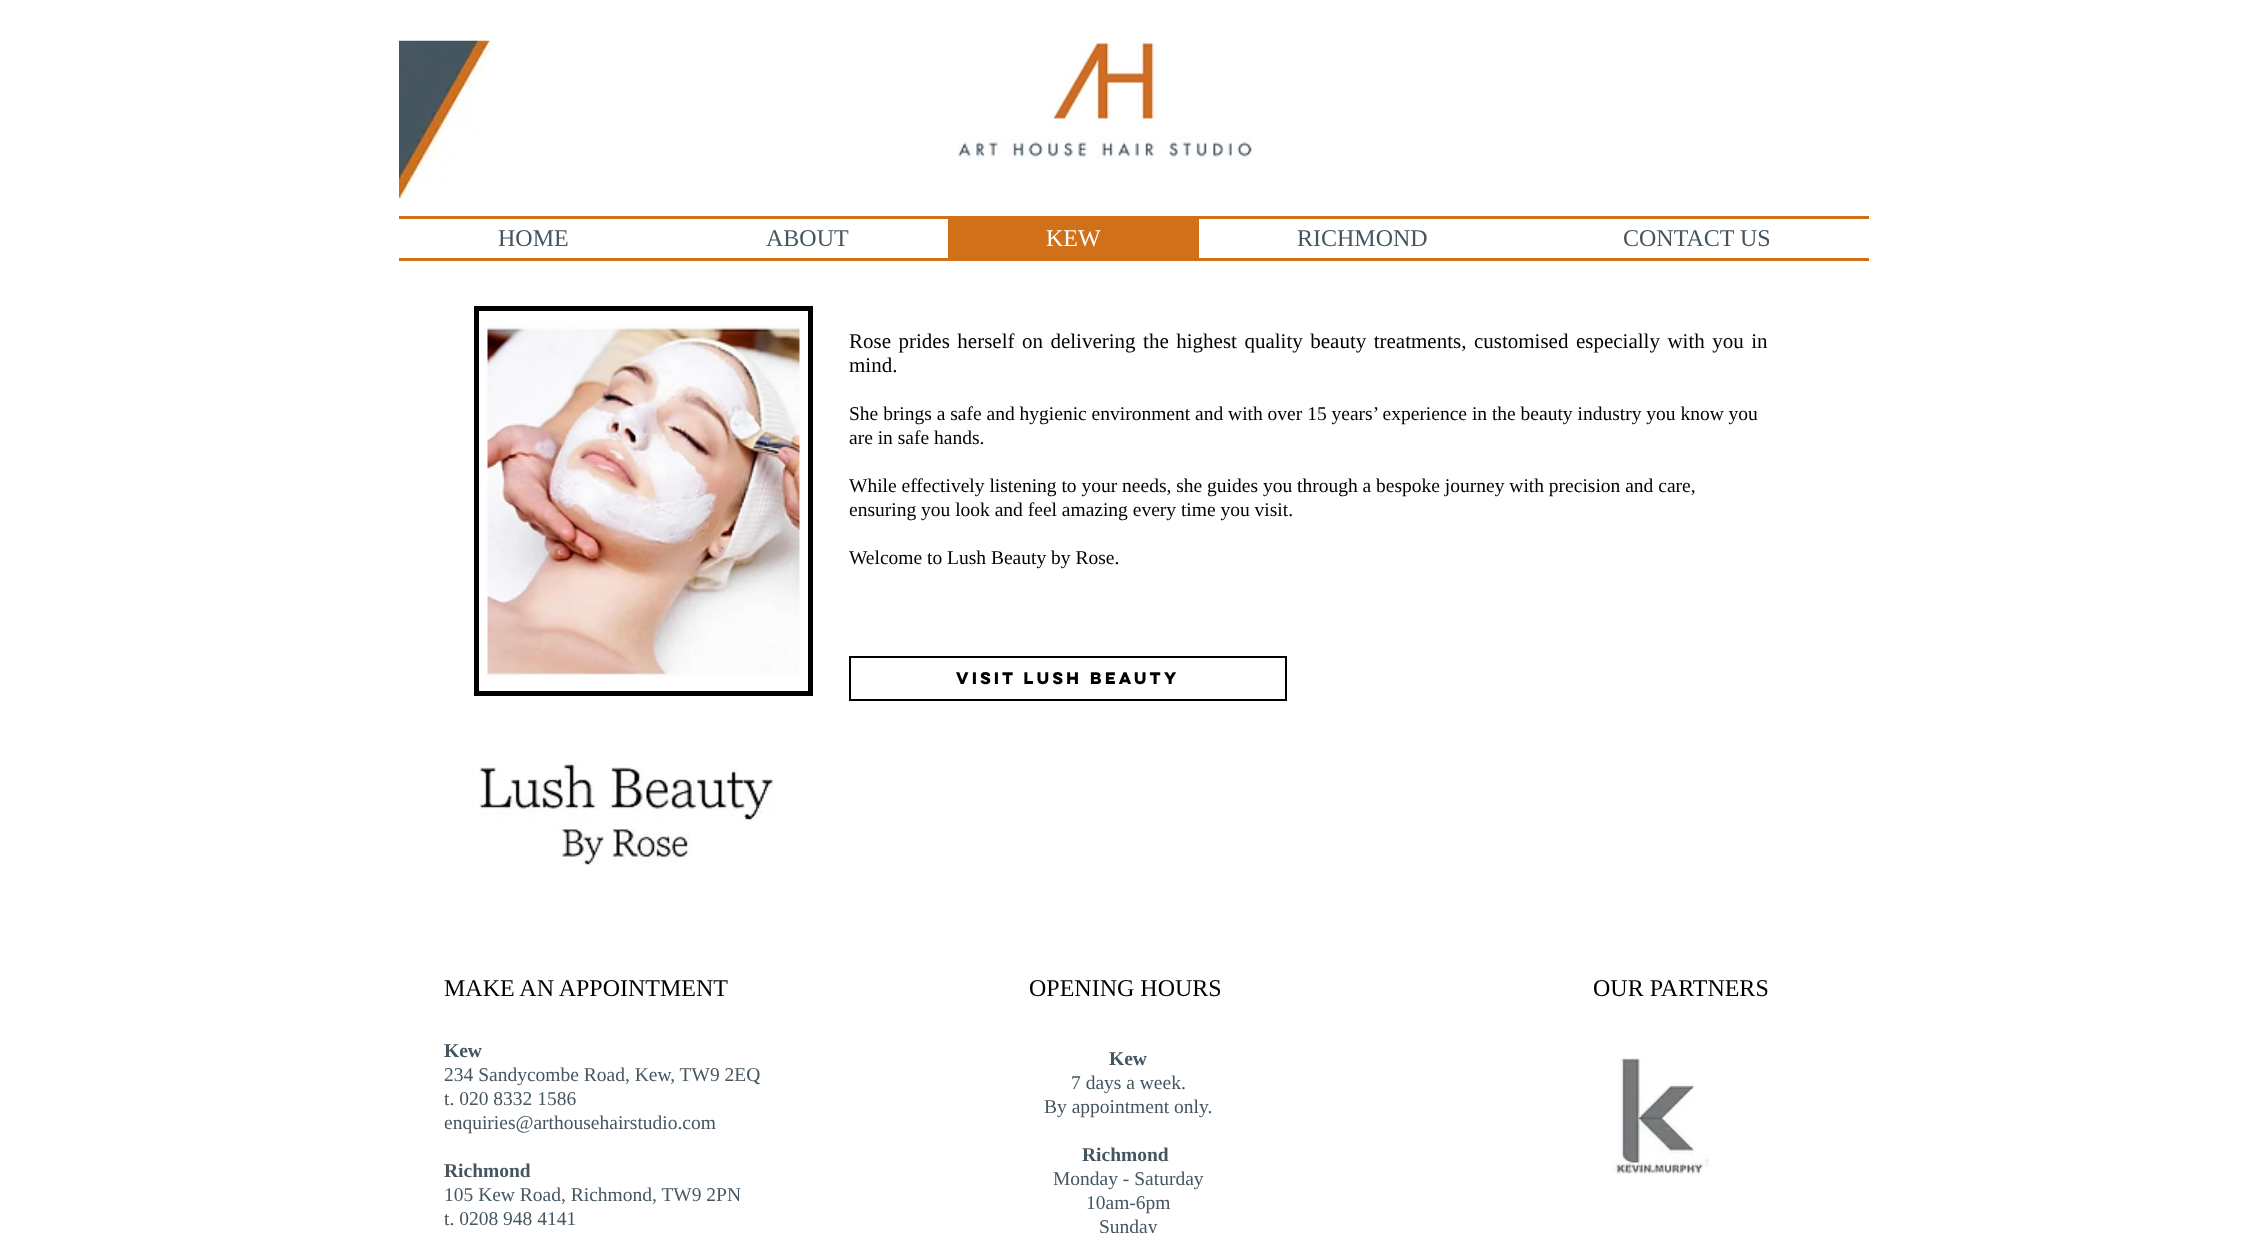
<svg xmlns="http://www.w3.org/2000/svg" xmlns:xlink="http://www.w3.org/1999/xlink" width="2267" height="1233" viewBox="0 0 2267 1233">
<style>
.cls-1{font:24px Liberation Serif;fill:#455660}
.cls-2{font:24px Liberation Serif;fill:#ffffff}
.cls-3{font:21px Liberation Serif;fill:#000000}
.cls-4{font:19.5px Liberation Serif;fill:#000000}
.cls-5{font:bold 15px 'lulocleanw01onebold';fill:#000000}
.cls-6{font:24px Liberation Serif;fill:#000000}
.cls-7{font:bold 19.5px Liberation Serif;fill:#455660}
.cls-8{font:19.5px Liberation Serif;fill:#455660}
</style>
<rect width="100%" height="100%" fill="#ffffff"/>
<image xlink:href="image0.png" x="958" y="41" width="294" height="118"/>
<image xlink:href="image1.png" x="399" y="40" width="93" height="161"/>
<rect fill="#d0711a" x="399" y="216" width="1470" height="3"/>
<rect fill="#d0711a" x="399" y="258" width="1470" height="3"/>
<rect fill="#d0711a" x="948" y="219" width="251" height="39"/>
<rect fill="none" stroke="#000000" stroke-width="5" x="476.5" y="308.5" width="334" height="385"/>
<image xlink:href="image2.png" x="487" y="325" width="313" height="352"/>
<rect fill="none" stroke="#000000" stroke-width="2" x="850" y="657" width="436" height="43"/>
<image xlink:href="image3.png" x="479" y="762" width="295" height="103"/>
<image xlink:href="image4.png" x="1612" y="1058" width="97" height="116"/>
<text class="cls-1" x="498" y="246">HOME</text>
<text class="cls-1" x="766" y="246">ABOUT</text>
<text class="cls-2" x="1046" y="246">KEW</text>
<text class="cls-1" x="1297" y="246">RICHMOND</text>
<text class="cls-1" x="1623" y="246">CONTACT US</text>
<text class="cls-3"><tspan x="849" y="348" word-spacing="2.25">Rose prides herself on delivering the highest quality beauty treatments, customised especially with you in</tspan><tspan x="849" y="372">mind.</tspan></text>
<text class="cls-4"><tspan x="849" y="420">She brings a safe and hygienic environment and with over 15 years’ experience in the beauty industry you know you</tspan><tspan x="849" y="444">are in safe hands.</tspan></text>
<text class="cls-4"><tspan x="849" y="492">While effectively listening to your needs, she guides you through a bespoke journey with precision and care,</tspan><tspan x="849" y="516">ensuring you look and feel amazing every time you visit.</tspan></text>
<text class="cls-4" x="849" y="564">Welcome to Lush Beauty by Rose.</text>
<text class="cls-5" x="956" y="684">VISIT LUSH BEAUTY</text>
<text class="cls-6" x="444" y="996">MAKE AN APPOINTMENT</text>
<text class="cls-6" x="1029" y="996">OPENING HOURS</text>
<text class="cls-6" x="1593" y="996">OUR PARTNERS</text>
<text class="cls-7" x="444" y="1057">Kew</text>
<text class="cls-8"><tspan x="444" y="1081">234 Sandycombe Road, Kew, TW9 2EQ</tspan><tspan x="444" y="1105">t. 020 8332 1586</tspan><tspan x="444" y="1129">enquiries@arthousehairstudio.com</tspan></text>
<text class="cls-7" x="444" y="1177">Richmond</text>
<text class="cls-8"><tspan x="444" y="1201">105 Kew Road, Richmond, TW9 2PN</tspan><tspan x="444" y="1225">t. 0208 948 4141</tspan></text>
<text class="cls-7" x="1109" y="1065">Kew</text>
<text class="cls-8" x="1071" y="1089">7 days a week.</text>
<text class="cls-8" x="1044" y="1113">By appointment only.</text>
<text class="cls-7" x="1082" y="1161">Richmond</text>
<text class="cls-8" x="1053" y="1185">Monday - Saturday</text>
<text class="cls-8" x="1086" y="1209">10am-6pm</text>
<text class="cls-8" x="1099" y="1233">Sunday</text>
</svg>
